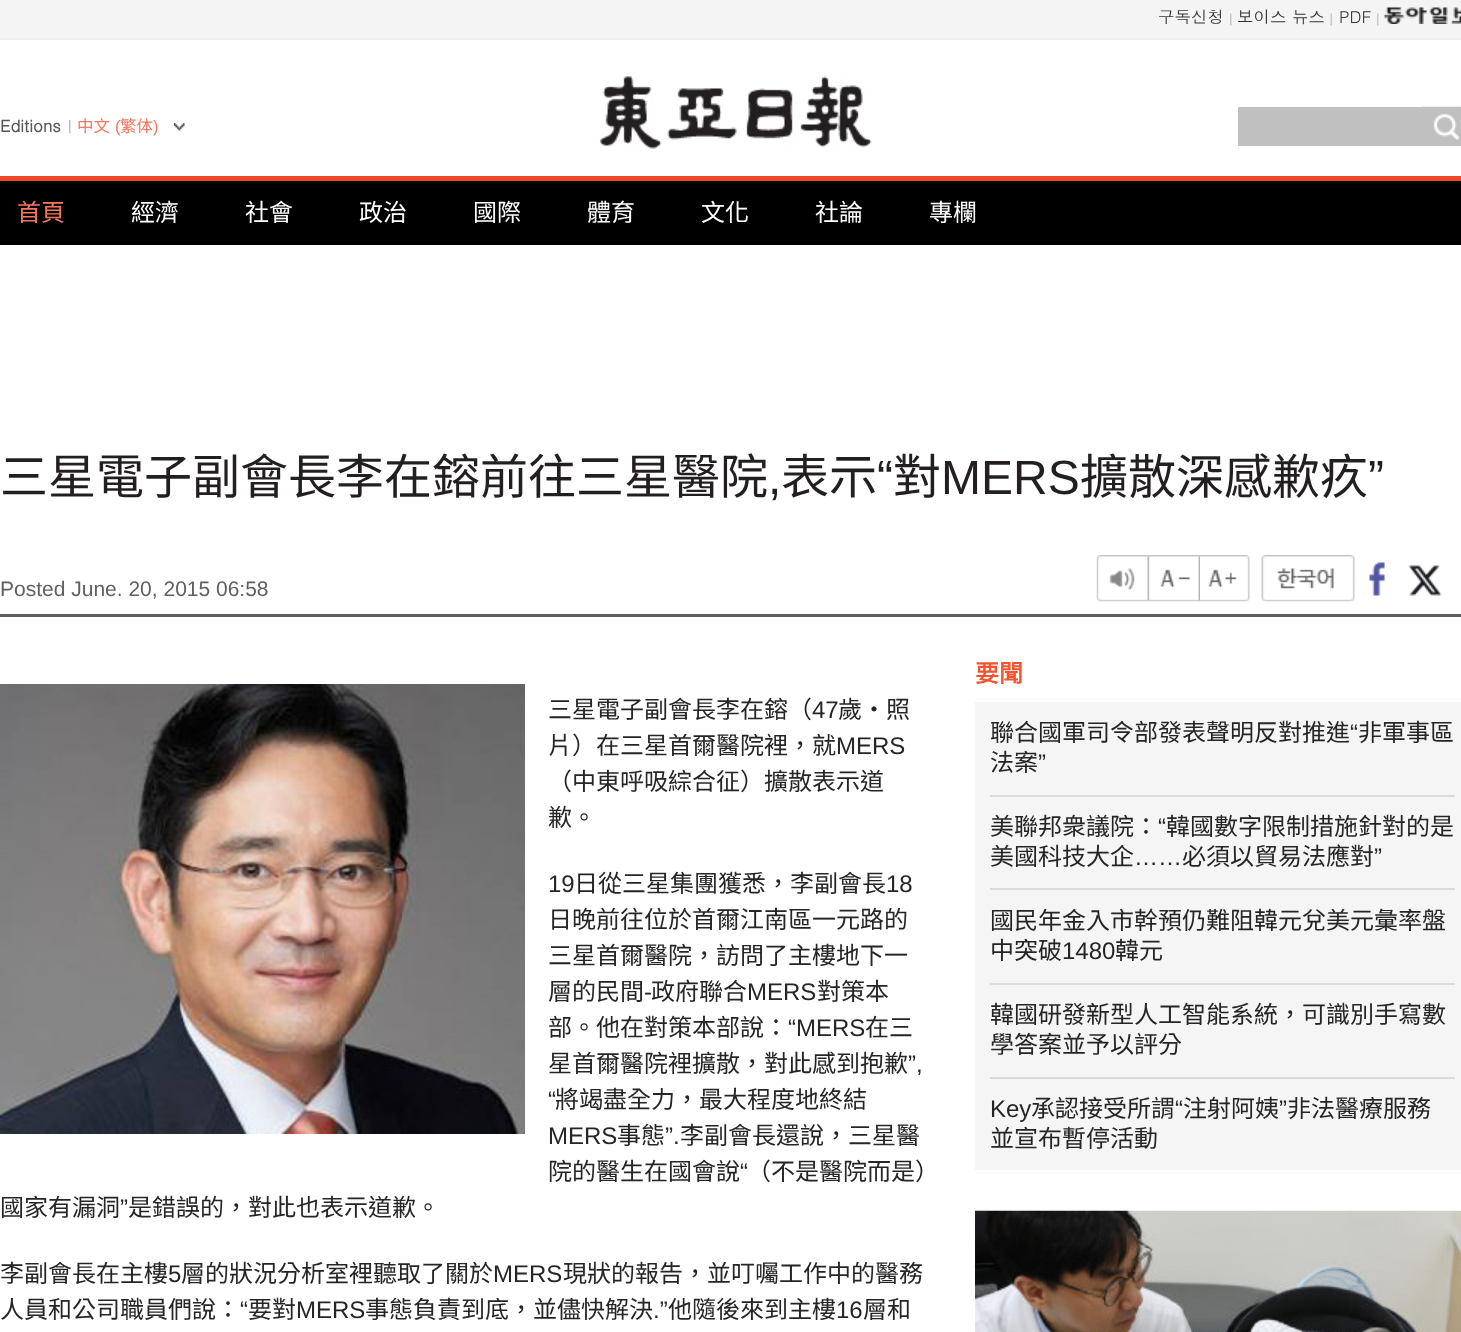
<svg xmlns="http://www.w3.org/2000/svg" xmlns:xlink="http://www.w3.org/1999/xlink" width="1461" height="1332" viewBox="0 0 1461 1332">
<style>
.cls-1{font:16.5px Dotum;fill:#333333}
.cls-2{font:bold 16.5px Dotum;fill:#575757}
.cls-3{font:16.5px Noto Sans CJK TC;fill:#f77660}
.cls-4{font:16.5px Liberation Sans;fill:#f77660}
.cls-5{font:24px Noto Sans CJK TC;fill:#f77660}
.cls-6{font:24px Noto Sans CJK TC;fill:#ffffff}
.cls-7{font:48px Noto Sans CJK TC;fill:#231f20}
.cls-8{font:48px Liberation Sans;fill:#231f20}
.cls-9{font:21px Liberation Sans;fill:#606060}
.cls-10{font:24px Noto Sans CJK TC;fill:#252525}
.cls-11{font:24px Liberation Sans;fill:#252525}
.cls-12{font:bold 24px Noto Sans CJK TC;fill:#f25430}
</style>
<rect width="100%" height="100%" fill="#ffffff"/>
<rect fill="#f4f4f4" x="0" y="0" width="1461" height="38"/>
<rect fill="#eeeeee" x="0" y="38" width="1461" height="2"/>
<image xlink:href="image0.png" x="1230" y="13" width="2" height="13"/>
<image xlink:href="image1.png" x="1330" y="13" width="2" height="13"/>
<image xlink:href="image0.png" x="1377" y="13" width="2" height="13"/>
<image xlink:href="image2.png" x="1384" y="7" width="77" height="17"/>
<image xlink:href="image3.png" x="69" y="120" width="2" height="14"/>
<image xlink:href="image4.png" x="174" y="123" width="11" height="8"/>
<image xlink:href="image5.png" x="600" y="76" width="272" height="73"/>
<rect fill="#c0c0c0" x="1238" y="107" width="223" height="39"/>
<image xlink:href="image6.png" x="1422" y="106" width="39" height="34"/>
<rect fill="#000000" x="0" y="181" width="1461" height="64"/>
<rect fill="#ef4a24" x="0" y="176" width="1461" height="5"/>
<rect fill="#5e5d5d" x="0" y="614" width="1461" height="3"/>
<image xlink:href="image7.png" x="1096" y="555" width="52" height="47"/>
<image xlink:href="image8.png" x="1147" y="555" width="53" height="47"/>
<image xlink:href="image9.png" x="1200" y="555" width="50" height="47"/>
<image xlink:href="image10.png" x="1261" y="555" width="94" height="47"/>
<image xlink:href="image11.png" x="1369" y="562" width="16" height="34"/>
<image xlink:href="image12.png" x="1408" y="565" width="34" height="31"/>
<image xlink:href="image13.png" x="0" y="684" width="525" height="450"/>
<rect fill="#f5f5f5" x="975" y="702" width="486" height="468"/>
<rect fill="#dbdbdb" x="990" y="795" width="465" height="2"/>
<rect fill="#dbdbdb" x="990" y="888" width="465" height="2"/>
<rect fill="#dbdbdb" x="990" y="983" width="465" height="2"/>
<rect fill="#dbdbdb" x="990" y="1077" width="465" height="2"/>
<image xlink:href="image14.png" x="975" y="1210" width="486" height="122"/>
<text class="cls-1" x="1158" y="23">구독신청</text>
<text class="cls-1" x="1237" y="23">보이스 뉴스</text>
<text class="cls-1" x="1339" y="23">PDF</text>
<text class="cls-2" x="0" y="132">Editions</text>
<text class="cls-3" x="77" y="132">中文</text>
<text class="cls-4" x="115" y="132">(</text>
<text class="cls-3" x="120" y="132">繁体</text>
<text class="cls-4" x="153" y="132">)</text>
<text class="cls-5" x="17" y="221">首頁</text>
<text class="cls-6" x="131" y="221">經濟</text>
<text class="cls-6" x="245" y="221">社會</text>
<text class="cls-6" x="359" y="221">政治</text>
<text class="cls-6" x="473" y="221">國際</text>
<text class="cls-6" x="587" y="221">體育</text>
<text class="cls-6" x="701" y="221">文化</text>
<text class="cls-6" x="815" y="221">社論</text>
<text class="cls-6" x="929" y="221">專欄</text>
<text class="cls-7" x="0" y="494">三星電子副會長李在鎔前往三星醫院</text>
<text class="cls-7" x="781" y="494">表示</text>
<text class="cls-8" x="877" y="494">“</text>
<text class="cls-7" x="893" y="494">對</text>
<text class="cls-8" x="941" y="494">MERS</text>
<text class="cls-7" x="1080" y="494">擴散深感歉疚</text>
<text class="cls-8" x="1368" y="494">”</text>
<text class="cls-8" x="768" y="494">,</text>
<text class="cls-9" x="0" y="596">Posted June. 20, 2015 06:58</text>
<text class="cls-10" x="548" y="718">三星電子副會長李在鎔（</text>
<text class="cls-11" x="812" y="718">47</text>
<text class="cls-10" x="838" y="718">歲‧照</text>
<text class="cls-10" x="548" y="754">片）在三星首爾醫院裡，就</text>
<text class="cls-11" x="836" y="754">MERS</text>
<text class="cls-10"><tspan x="548" y="790">（中東呼吸綜合征）擴散表示道</tspan><tspan x="548" y="826">歉。</tspan></text>
<text class="cls-11" x="548" y="892">19</text>
<text class="cls-10" x="574" y="892">日從三星集團獲悉，李副會長</text>
<text class="cls-11" x="886" y="892">18</text>
<text class="cls-10"><tspan x="548" y="928">日晚前往位於首爾江南區一元路的</tspan><tspan x="548" y="964">三星首爾醫院，訪問了主樓地下一</tspan><tspan x="548" y="1000">層的民間</tspan></text>
<text class="cls-11" x="644" y="1000">-</text>
<text class="cls-10" x="651" y="1000">政府聯合</text>
<text class="cls-11" x="747" y="1000">MERS</text>
<text class="cls-10" x="817" y="1000">對策本</text>
<text class="cls-10" x="548" y="1036">部。他在對策本部說：</text>
<text class="cls-11" x="788" y="1036">“MERS</text>
<text class="cls-10" x="865" y="1036">在三</text>
<text class="cls-10" x="548" y="1072">星首爾醫院裡擴散，對此感到抱歉</text>
<text class="cls-11" x="908" y="1072">”,</text>
<text class="cls-11" x="548" y="1108">“</text>
<text class="cls-10" x="555" y="1108">將竭盡全力，最大程度地終結</text>
<text class="cls-11" x="548" y="1144">MERS</text>
<text class="cls-10" x="617" y="1144">事態</text>
<text class="cls-11" x="665" y="1144">”.</text>
<text class="cls-10" x="680" y="1144">李副會長還說，三星醫</text>
<text class="cls-10" x="548" y="1180">院的醫生在國會說</text>
<text class="cls-11" x="740" y="1180">“</text>
<text class="cls-10" x="747" y="1180">（不是醫院而是）</text>
<text class="cls-10" x="0" y="1216">國家有漏洞</text>
<text class="cls-11" x="120" y="1216">”</text>
<text class="cls-10" x="128" y="1216">是錯誤的，對此也表示道歉。</text>
<text class="cls-10" x="0" y="1282">李副會長在主樓</text>
<text class="cls-11" x="168" y="1282">5</text>
<text class="cls-10" x="181" y="1282">層的狀況分析室裡聽取了關於</text>
<text class="cls-11" x="493" y="1282">MERS</text>
<text class="cls-10" x="563" y="1282">現狀的報告，並叮囑工作中的醫務</text>
<text class="cls-10" x="0" y="1318">人員和公司職員們說：</text>
<text class="cls-11" x="240" y="1318">“</text>
<text class="cls-10" x="248" y="1318">要對</text>
<text class="cls-11" x="296" y="1318">MERS</text>
<text class="cls-10" x="365" y="1318">事態負責到底，並儘快解決</text>
<text class="cls-11" x="653" y="1318">.”</text>
<text class="cls-10" x="668" y="1318">他隨後來到主樓</text>
<text class="cls-11" x="836" y="1318">16</text>
<text class="cls-10" x="863" y="1318">層和</text>
<text class="cls-12" x="975" y="682">要聞</text>
<text class="cls-10" x="990" y="741">聯合國軍司令部發表聲明反對推進</text>
<text class="cls-11" x="1350" y="741">“</text>
<text class="cls-10" x="1358" y="741">非軍事區</text>
<text class="cls-10" x="990" y="771">法案</text>
<text class="cls-11" x="1038" y="771">”</text>
<text class="cls-10" x="990" y="835">美聯邦衆議院：</text>
<text class="cls-11" x="1158" y="835">“</text>
<text class="cls-10" x="1166" y="835">韓國數字限制措施針對的是</text>
<text class="cls-10" x="990" y="865">美國科技大企</text>
<text class="cls-10" x="1182" y="865">必須以貿易法應對</text>
<text class="cls-11" x="1374" y="865">”</text>
<text class="cls-11" x="1134" y="865">……</text>
<text class="cls-10"><tspan x="990" y="929">國民年金入市幹預仍難阻韓元兌美元彙率盤</tspan><tspan x="990" y="959">中突破</tspan></text>
<text class="cls-11" x="1062" y="959">1480</text>
<text class="cls-10" x="1115" y="959">韓元</text>
<text class="cls-10"><tspan x="990" y="1023">韓國研發新型人工智能系統，可識別手寫數</tspan><tspan x="990" y="1053">學答案並予以評分</tspan></text>
<text class="cls-11" x="990" y="1117">Key</text>
<text class="cls-10" x="1031" y="1117">承認接受所謂</text>
<text class="cls-11" x="1175" y="1117">“</text>
<text class="cls-10" x="1183" y="1117">注射阿姨</text>
<text class="cls-11" x="1279" y="1117">”</text>
<text class="cls-10" x="1287" y="1117">非法醫療服務</text>
<text class="cls-10" x="990" y="1147">並宣布暫停活動</text>
</svg>
